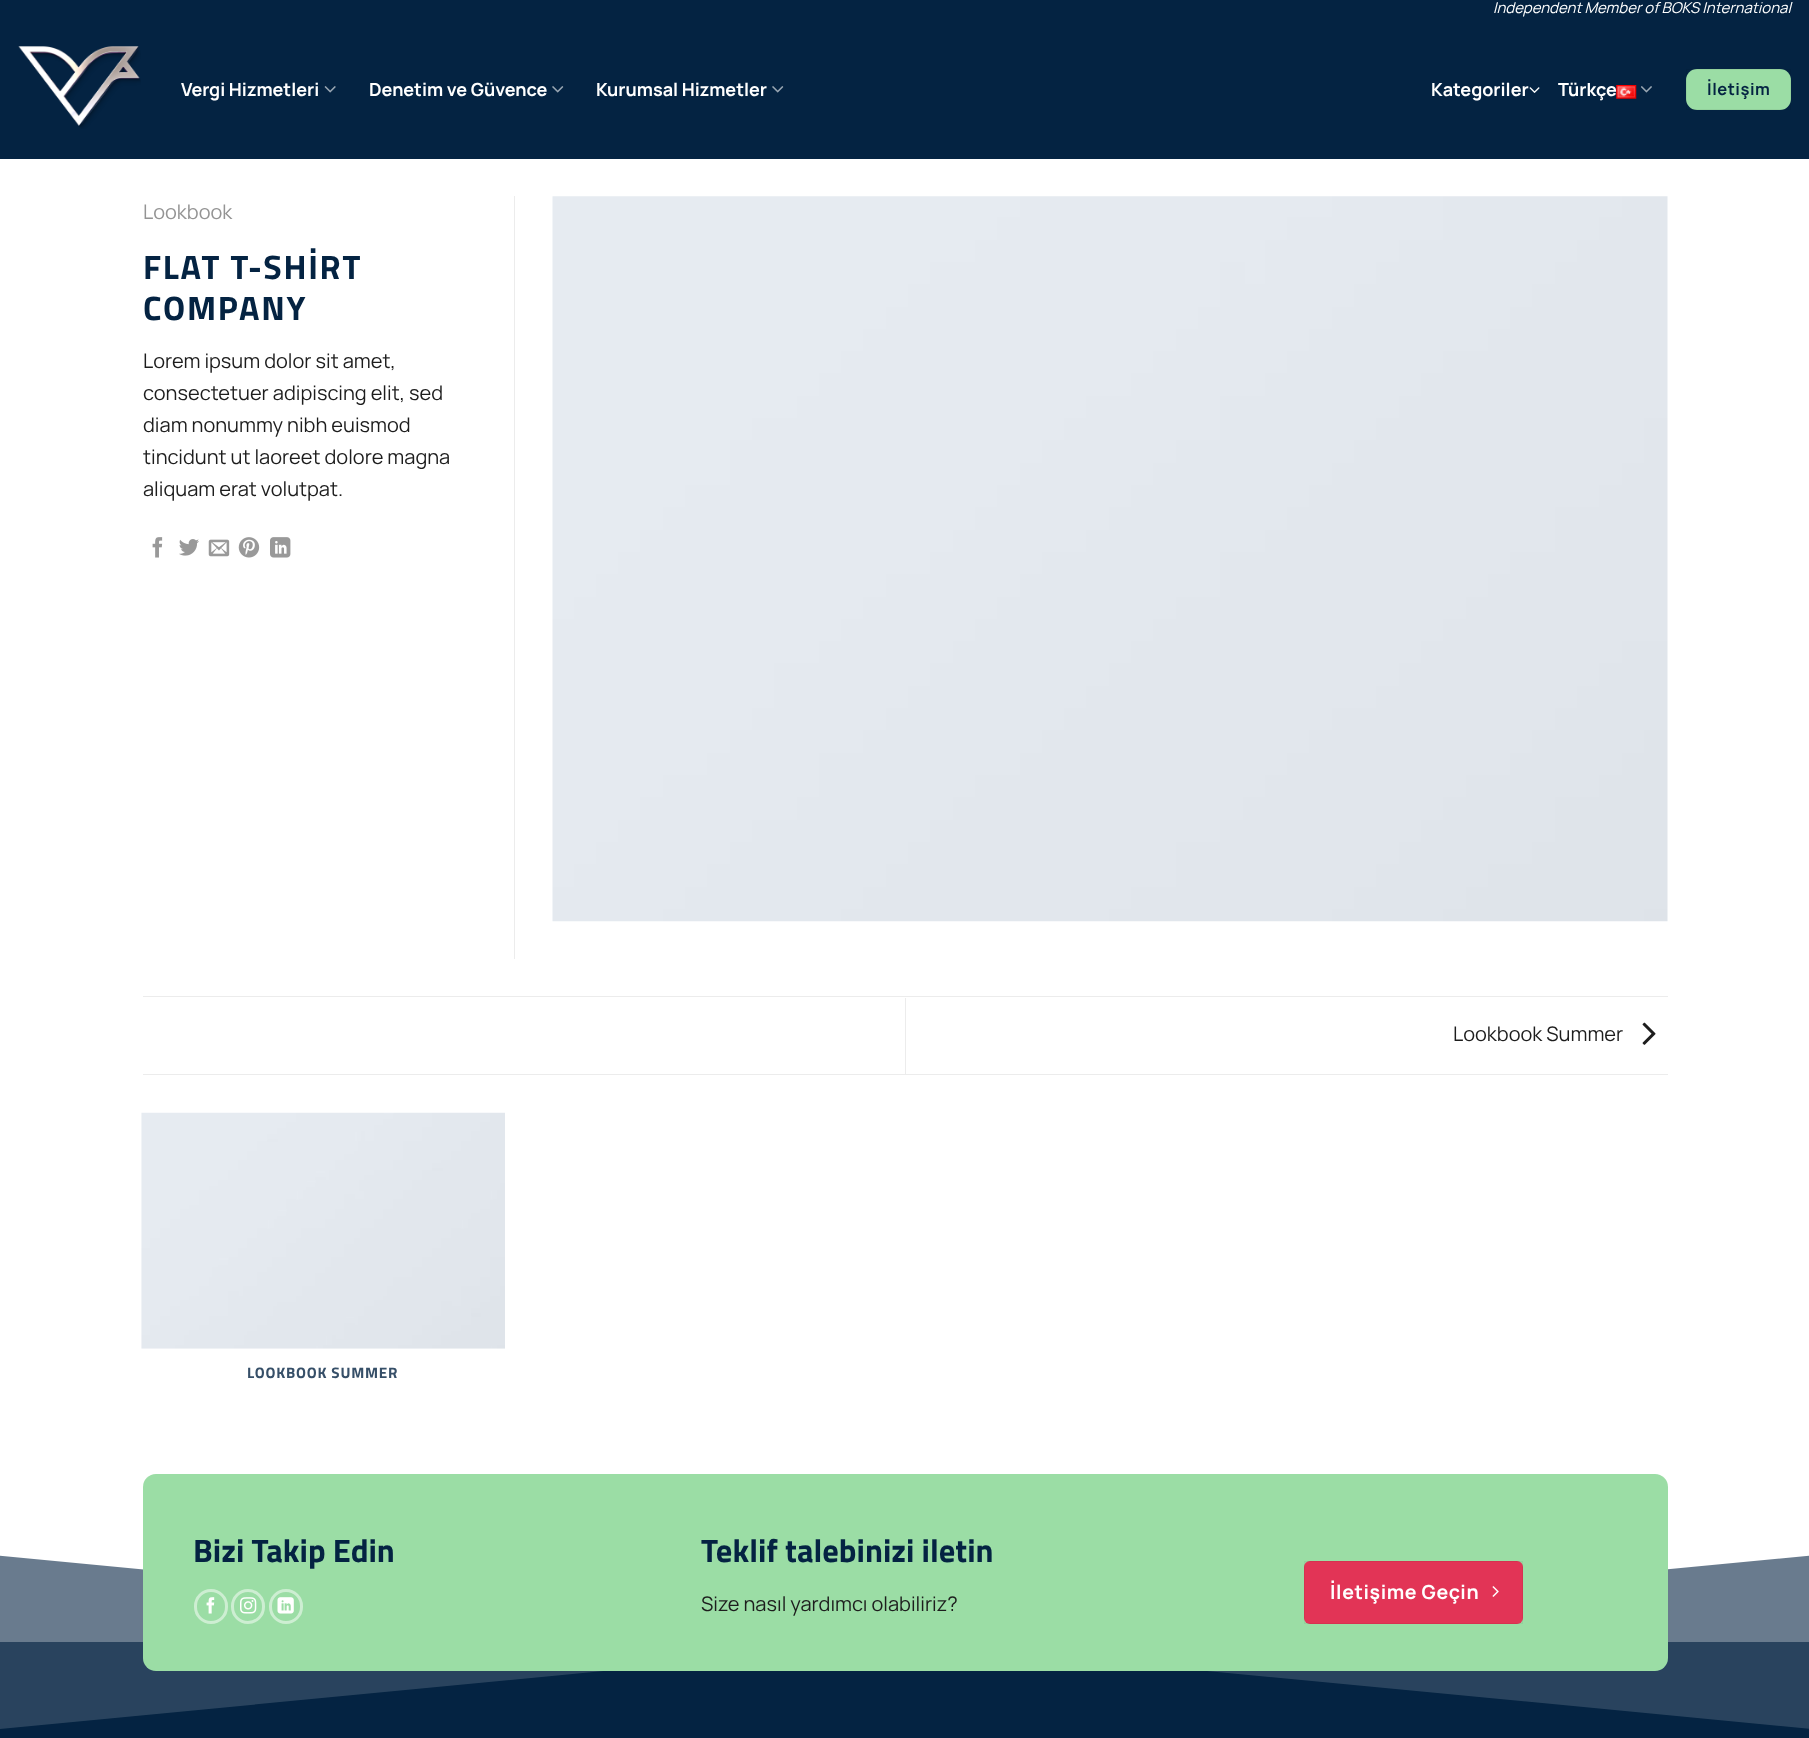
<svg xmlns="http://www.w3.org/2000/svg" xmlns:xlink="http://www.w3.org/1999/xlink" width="1809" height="1738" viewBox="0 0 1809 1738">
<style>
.cls-1{font:italic 15px Manrope;fill:#ffffff}
.cls-2{font:bold 18px Manrope;fill:#ffffff}
.cls-3{font:bold 16.5px Manrope;letter-spacing:0.5px;fill:#042342}
.cls-4{font:20px Manrope;fill:#949494}
.cls-5{font:bold 34px Titillium Web;letter-spacing:1.75px;fill:#042342}
.cls-6{font:20px Manrope;fill:#1d1d1d}
.cls-7{font:bold 15.25px Titillium Web;letter-spacing:0.75px;fill:#364f68}
.cls-8{font:bold 32.5px Titillium Web;fill:#042342}
.cls-9{font:bold 19.5px Manrope;letter-spacing:0.6px;fill:#ffffff}
</style>
<defs>
<clipPath id="clip1"><rect x="0" y="1548" width="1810" height="187"/></clipPath>
</defs>
<rect width="100%" height="100%" fill="#ffffff"/>
<rect fill="#042342" x="0" y="0" width="1809" height="159"/>
<image xlink:href="image0.png" x="18" y="46" width="123" height="83"/>
<image xlink:href="image1.png" x="324" y="86" width="12" height="7"/>
<image xlink:href="image2.png" x="552" y="86" width="12" height="7"/>
<image xlink:href="image2.png" x="772" y="86" width="12" height="7"/>
<image xlink:href="image3.png" x="1529" y="87" width="11" height="6"/>
<image xlink:href="image4.png" x="1616" y="85" width="21" height="14"/>
<image xlink:href="image5.png" x="1641" y="86" width="11" height="7"/>
<rect fill="#9bdda5" x="1686" y="69" width="105" height="41" rx="11"/>
<rect fill="none" stroke="#000000" stroke-opacity="0.05" x="1686.5" y="69.5" width="104" height="40"/>
<rect fill="#ececec" x="514" y="196" width="1" height="763"/>
<image xlink:href="image6.png" x="152" y="537" width="11" height="21"/>
<image xlink:href="image7.png" x="179" y="539" width="20" height="17"/>
<image xlink:href="image8.png" x="208" y="539" width="22" height="18"/>
<image xlink:href="image9.png" x="238" y="537" width="22" height="21"/>
<image xlink:href="image10.png" x="270" y="537" width="21" height="21"/>
<image xlink:href="image11.png" x="552" y="196" width="1116" height="726"/>
<rect fill="#ececec" x="143" y="996" width="1525" height="1"/>
<rect fill="#ececec" x="143" y="1074" width="1525" height="1"/>
<rect fill="#ececec" x="905" y="998" width="1" height="76"/>
<image xlink:href="image12.png" x="1642" y="1022" width="14" height="23"/>
<image xlink:href="image13.png" x="141" y="1112" width="364" height="237"/>
<rect fill="#042342" x="0" y="1555" width="1809" height="183"/>
<g clip-path="url(#clip1)">
<path fill="#ffffff" d="M905 1642L-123 1544H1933Z"/>
<path fill="#ffffff" fill-opacity="0.15" d="M-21 1731L905 1642L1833 1731V1539H-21Z"/>
</g>
<rect fill="#ffffff" fill-opacity="0.3" x="0" y="1555" width="1809" height="87"/>
<rect fill="#9bdda5" x="143" y="1474" width="1525" height="197" rx="13"/>
<rect fill="none" stroke="#cdeed2" stroke-width="3" x="195.5" y="1590.5" width="31" height="32" rx="15.5"/>
<image xlink:href="image14.png" x="206" y="1597" width="9" height="17"/>
<rect fill="none" stroke="#cdeed2" stroke-width="3" x="232.5" y="1590.5" width="31" height="32" rx="15.5"/>
<image xlink:href="image15.png" x="240" y="1597" width="17" height="17"/>
<rect fill="none" stroke="#cdeed2" stroke-width="3" x="270.5" y="1590.5" width="31" height="32" rx="15.5"/>
<image xlink:href="image16.png" x="277" y="1597" width="17" height="17"/>
<rect fill="#e23456" x="1304" y="1561" width="219" height="63" rx="6"/>
<rect fill="none" stroke="#000000" stroke-opacity="0.05" x="1304.5" y="1561.5" width="218" height="62"/>
<image xlink:href="image17.png" x="1492" y="1586" width="7" height="11"/>
<text class="cls-1" x="1493" y="13">Independent Member of BOKS International</text>
<text class="cls-2" x="181" y="96">Vergi Hizmetleri</text>
<text class="cls-2" x="369" y="96">Denetim ve Güvence</text>
<text class="cls-2" x="596" y="96">Kurumsal Hizmetler</text>
<text class="cls-2" x="1431" y="96">Kategoriler</text>
<text class="cls-2" x="1558" y="96">Türkçe</text>
<text class="cls-3" x="1707" y="95">İletişim</text>
<text class="cls-4" x="143" y="219">Lookbook</text>
<text class="cls-5"><tspan x="143" y="279">FLAT T-SHİRT</tspan><tspan x="143" y="320">COMPANY</tspan></text>
<text class="cls-6"><tspan x="143" y="368">Lorem ipsum dolor sit amet,</tspan><tspan x="143" y="400">consectetuer adipiscing elit, sed</tspan><tspan x="143" y="432">diam nonummy nibh euismod</tspan><tspan x="143" y="464">tincidunt ut laoreet dolore magna</tspan><tspan x="143" y="496">aliquam erat volutpat.</tspan></text>
<text class="cls-6" x="1453" y="1041">Lookbook Summer</text>
<text class="cls-7" x="247" y="1378">LOOKBOOK SUMMER</text>
<text class="cls-8" x="193" y="1562">Bizi Takip Edin</text>
<text class="cls-8" x="701" y="1562">Teklif talebinizi iletin</text>
<text class="cls-6" x="701" y="1611">Size nasıl yardımcı olabiliriz?</text>
<text class="cls-9" x="1330" y="1599">İletişime Geçin</text>
</svg>
